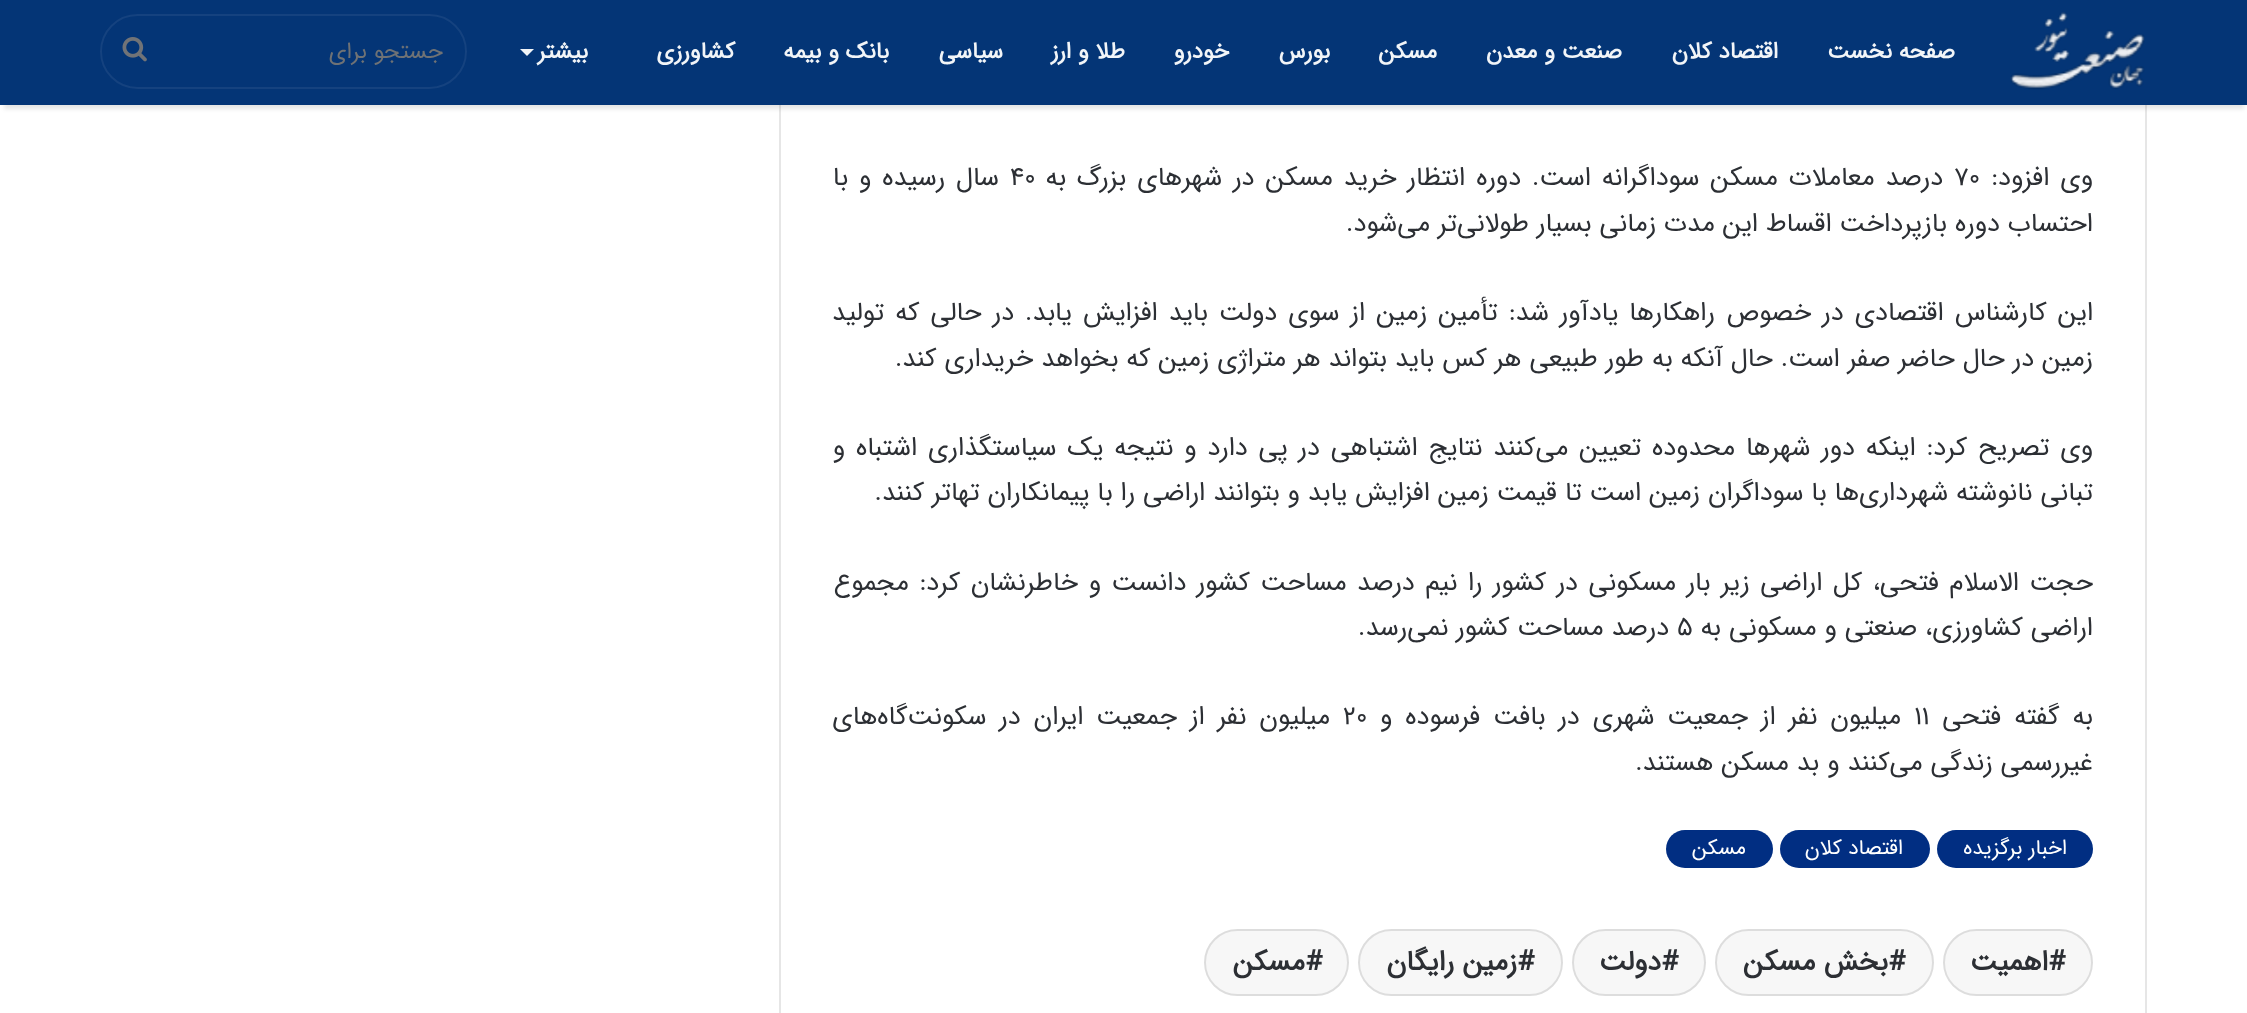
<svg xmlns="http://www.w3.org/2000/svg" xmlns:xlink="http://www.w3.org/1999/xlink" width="2247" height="1013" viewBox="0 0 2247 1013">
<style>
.cls-1{font:bold 22.75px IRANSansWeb;direction:rtl;fill:#f2f5f8}
.cls-2{font:22.75px IRANSansWeb;direction:rtl;fill:#6f7275}
.cls-3{font:26.25px IRANSansWeb;direction:rtl;fill:#2c2f34}
.cls-4{font:26.25px IRANSansWeb;fill:#2c2f34}
.cls-5{font:21px IRANSansWeb;direction:rtl;fill:#ffffff}
.cls-6{font:bold 28px IRANSansWeb;fill:#2c2f34}
.cls-7{font:bold 28px IRANSansWeb;direction:rtl;fill:#2c2f34}
</style>
<rect width="100%" height="100%" fill="#ffffff"/>
<rect fill="none" stroke="#e6e6e6" stroke-width="2" x="780" y="-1" width="1366" height="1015"/>
<rect fill="#000000" fill-opacity="0.1" filter="blur(2px)" x="4" y="11" width="2240" height="98"/>
<rect fill="#043576" x="0" y="0" width="2247" height="105"/>
<image xlink:href="image0.png" x="2010" y="12" width="135" height="78"/>
<path fill="#f2f5f8" d="M520 49H534L527 56Z"/>
<rect fill="none" stroke="#15427f" stroke-width="2" x="101" y="15" width="365" height="73" rx="36.5"/>
<image xlink:href="image1.png" x="122" y="37" width="25" height="25"/>
<rect fill="#012e82" x="1937" y="830" width="156" height="38" rx="19"/>
<rect fill="#012e82" x="1780" y="830" width="150" height="38" rx="19"/>
<rect fill="#012e82" x="1666" y="830" width="107" height="38" rx="19"/>
<rect fill="#f7f7f7" x="1943" y="929" width="150" height="67" rx="33.5"/>
<rect fill="none" stroke="#000000" stroke-opacity="0.1" stroke-width="2" x="1944" y="930" width="148" height="65" rx="32.5"/>
<rect fill="#f7f7f7" x="1715" y="929" width="219" height="67" rx="33.5"/>
<rect fill="none" stroke="#000000" stroke-opacity="0.1" stroke-width="2" x="1716" y="930" width="217" height="65" rx="32.5"/>
<rect fill="#f7f7f7" x="1572" y="929" width="134" height="67" rx="33.5"/>
<rect fill="none" stroke="#000000" stroke-opacity="0.1" stroke-width="2" x="1573" y="930" width="132" height="65" rx="32.5"/>
<rect fill="#f7f7f7" x="1358" y="929" width="205" height="67" rx="33.5"/>
<rect fill="none" stroke="#000000" stroke-opacity="0.1" stroke-width="2" x="1359" y="930" width="203" height="65" rx="32.5"/>
<rect fill="#f7f7f7" x="1204" y="929" width="145" height="67" rx="33.5"/>
<rect fill="none" stroke="#000000" stroke-opacity="0.1" stroke-width="2" x="1205" y="930" width="143" height="65" rx="32.5"/>
<text class="cls-1" x="1955" y="58">صفحه نخست</text>
<text class="cls-1" x="1778" y="58">اقتصاد کلان</text>
<text class="cls-1" x="1622" y="58">صنعت و معدن</text>
<text class="cls-1" x="1437" y="58">مسکن</text>
<text class="cls-1" x="1330" y="58">بورس</text>
<text class="cls-1" x="1229" y="58">خودرو</text>
<text class="cls-1" x="1125" y="58">طلا و ارز</text>
<text class="cls-1" x="1003" y="58">سیاسی</text>
<text class="cls-1" x="889" y="58">بانک و بیمه</text>
<text class="cls-1" x="735" y="58">کشاورزی</text>
<text class="cls-1" x="588" y="58">بیشتر</text>
<text class="cls-2" x="443" y="58">جستجو برای</text>
<text class="cls-3" x="2093" y="185" word-spacing="3">وی افزود:</text>
<text class="cls-4" x="1954" y="185">۷۰</text>
<text class="cls-3" x="1943" y="185" word-spacing="3">درصد معاملات مسکن سوداگرانه است. دوره انتظار خرید مسکن در شهرهای بزرگ به</text>
<text class="cls-4" x="1010" y="185">۴۰</text>
<text class="cls-3" x="999" y="185" word-spacing="3">سال رسیده و با</text>
<text class="cls-3" x="2093" y="231">احتساب دوره بازپرداخت اقساط این مدت زمانی بسیار طولانی‌تر می‌شود.</text>
<text class="cls-3"><tspan x="2093" y="320" word-spacing="3.1">این کارشناس اقتصادی در خصوص راهکارها یادآور شد: تأمین زمین از سوی دولت باید افزایش یابد. در حالی که تولید</tspan><tspan x="2093" y="366">زمین در حال حاضر صفر است. حال آنکه به طور طبیعی هر کس باید بتواند هر متراژی زمین که بخواهد خریداری کند.</tspan></text>
<text class="cls-3"><tspan x="2093" y="455" word-spacing="2.9">وی تصریح کرد: اینکه دور شهرها محدوده تعیین می‌کنند نتایج اشتباهی در پی دارد و نتیجه یک سیاستگذاری اشتباه و</tspan><tspan x="2093" y="500">تبانی نانوشته شهرداری‌ها با سوداگران زمین است تا قیمت زمین افزایش یابد و بتوانند اراضی را با پیمانکاران تهاتر کنند.</tspan></text>
<text class="cls-3"><tspan x="2093" y="590" word-spacing="2.6">حجت الاسلام فتحی، کل اراضی زیر بار مسکونی در کشور را نیم درصد مساحت کشور دانست و خاطرنشان کرد: مجموع</tspan><tspan x="2093" y="635">اراضی کشاورزی، صنعتی و مسکونی به</tspan></text>
<text class="cls-4" x="1677" y="635">۵</text>
<text class="cls-3" x="1669" y="635">درصد مساحت کشور نمی‌رسد.</text>
<text class="cls-3" x="2093" y="724" word-spacing="5">به گفته فتحی</text>
<text class="cls-4" x="1914" y="724">۱۱</text>
<text class="cls-3" x="1901" y="724" word-spacing="5">میلیون نفر از جمعیت شهری در بافت فرسوده و</text>
<text class="cls-4" x="1343" y="724">۲۰</text>
<text class="cls-3" x="1330" y="724" word-spacing="5">میلیون نفر از جمعیت ایران در سکونت‌گاه‌های</text>
<text class="cls-3" x="2093" y="770">غیررسمی زندگی می‌کنند و بد مسکن هستند.</text>
<text class="cls-5" x="2067" y="854">اخبار برگزیده</text>
<text class="cls-5" x="1903" y="854">اقتصاد کلان</text>
<text class="cls-5" x="1746" y="854">مسکن</text>
<text class="cls-6" x="2048" y="970">#</text>
<text class="cls-7" x="2048" y="970">اهمیت</text>
<text class="cls-6" x="1888" y="970">#</text>
<text class="cls-7" x="1888" y="970">بخش مسکن</text>
<text class="cls-6" x="1661" y="970">#</text>
<text class="cls-7" x="1661" y="970">دولت</text>
<text class="cls-6" x="1517" y="970">#</text>
<text class="cls-7" x="1517" y="970">زمین رایگان</text>
<text class="cls-6" x="1305" y="970">#</text>
<text class="cls-7" x="1305" y="970">مسکن</text>
</svg>
